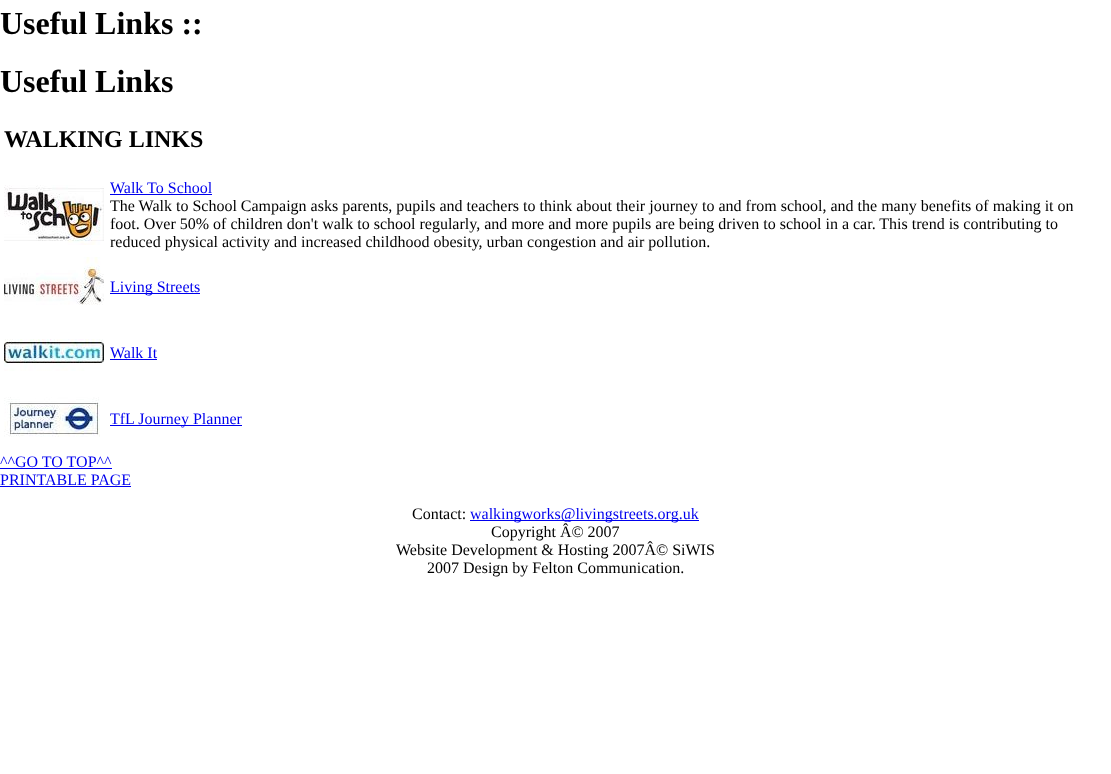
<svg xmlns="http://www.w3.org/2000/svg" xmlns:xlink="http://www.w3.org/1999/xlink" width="1111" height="774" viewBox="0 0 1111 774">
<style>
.cls-1{font:bold 32px Liberation Serif;fill:#000000}
.cls-2{font:bold 24px Liberation Serif;fill:#000000}
.cls-3{font:16px Liberation Serif;fill:#0000ee}
.cls-4{font:16px Liberation Serif;fill:#000000}
</style>
<rect width="100%" height="100%" fill="#ffffff"/>
<image xlink:href="image0.png" x="4" y="185" width="100" height="60"/>
<rect fill="#0000ee" x="110" y="194" width="102" height="1"/>
<image xlink:href="image1.png" x="4" y="257" width="100" height="48"/>
<rect fill="#0000ee" x="110" y="293" width="90" height="1"/>
<image xlink:href="image2.png" x="4" y="339" width="100" height="32"/>
<rect fill="#0000ee" x="110" y="359" width="47" height="1"/>
<image xlink:href="image3.png" x="4" y="397" width="96" height="40"/>
<rect fill="#0000ee" x="110" y="425" width="132" height="1"/>
<rect fill="#0000ee" x="0" y="468" width="112" height="1"/>
<rect fill="#0000ee" x="0" y="486" width="131" height="1"/>
<rect fill="#0000ee" x="470" y="520" width="229" height="1"/>
<text class="cls-1"><tspan x="0" y="34">Useful Links ::</tspan><tspan x="0" y="92">Useful Links</tspan></text>
<text class="cls-2" x="4" y="147">WALKING LINKS</text>
<text class="cls-3" x="110" y="193">Walk To School</text>
<text class="cls-4"><tspan x="110" y="211">The Walk to School Campaign asks parents, pupils and teachers to think about their journey to and from school, and the many benefits of making it on</tspan><tspan x="110" y="229">foot. Over 50% of children don't walk to school regularly, and more and more pupils are being driven to school in a car. This trend is contributing to</tspan><tspan x="110" y="247">reduced physical activity and increased childhood obesity, urban congestion and air pollution.</tspan></text>
<text class="cls-3" x="110" y="292">Living Streets</text>
<text class="cls-3" x="110" y="358">Walk It</text>
<text class="cls-3" x="110" y="424">TfL Journey Planner</text>
<text class="cls-3"><tspan x="0" y="467">^^GO TO TOP^^</tspan><tspan x="0" y="485">PRINTABLE PAGE</tspan></text>
<text class="cls-4" x="412" y="519">Contact:</text>
<text class="cls-3" x="470" y="519">walkingworks@livingstreets.org.uk</text>
<text class="cls-4" x="491" y="537">Copyright Â© 2007</text>
<text class="cls-4" x="396" y="555">Website Development &amp; Hosting 2007Â© SiWIS</text>
<text class="cls-4" x="427" y="573">2007 Design by Felton Communication.</text>
</svg>
